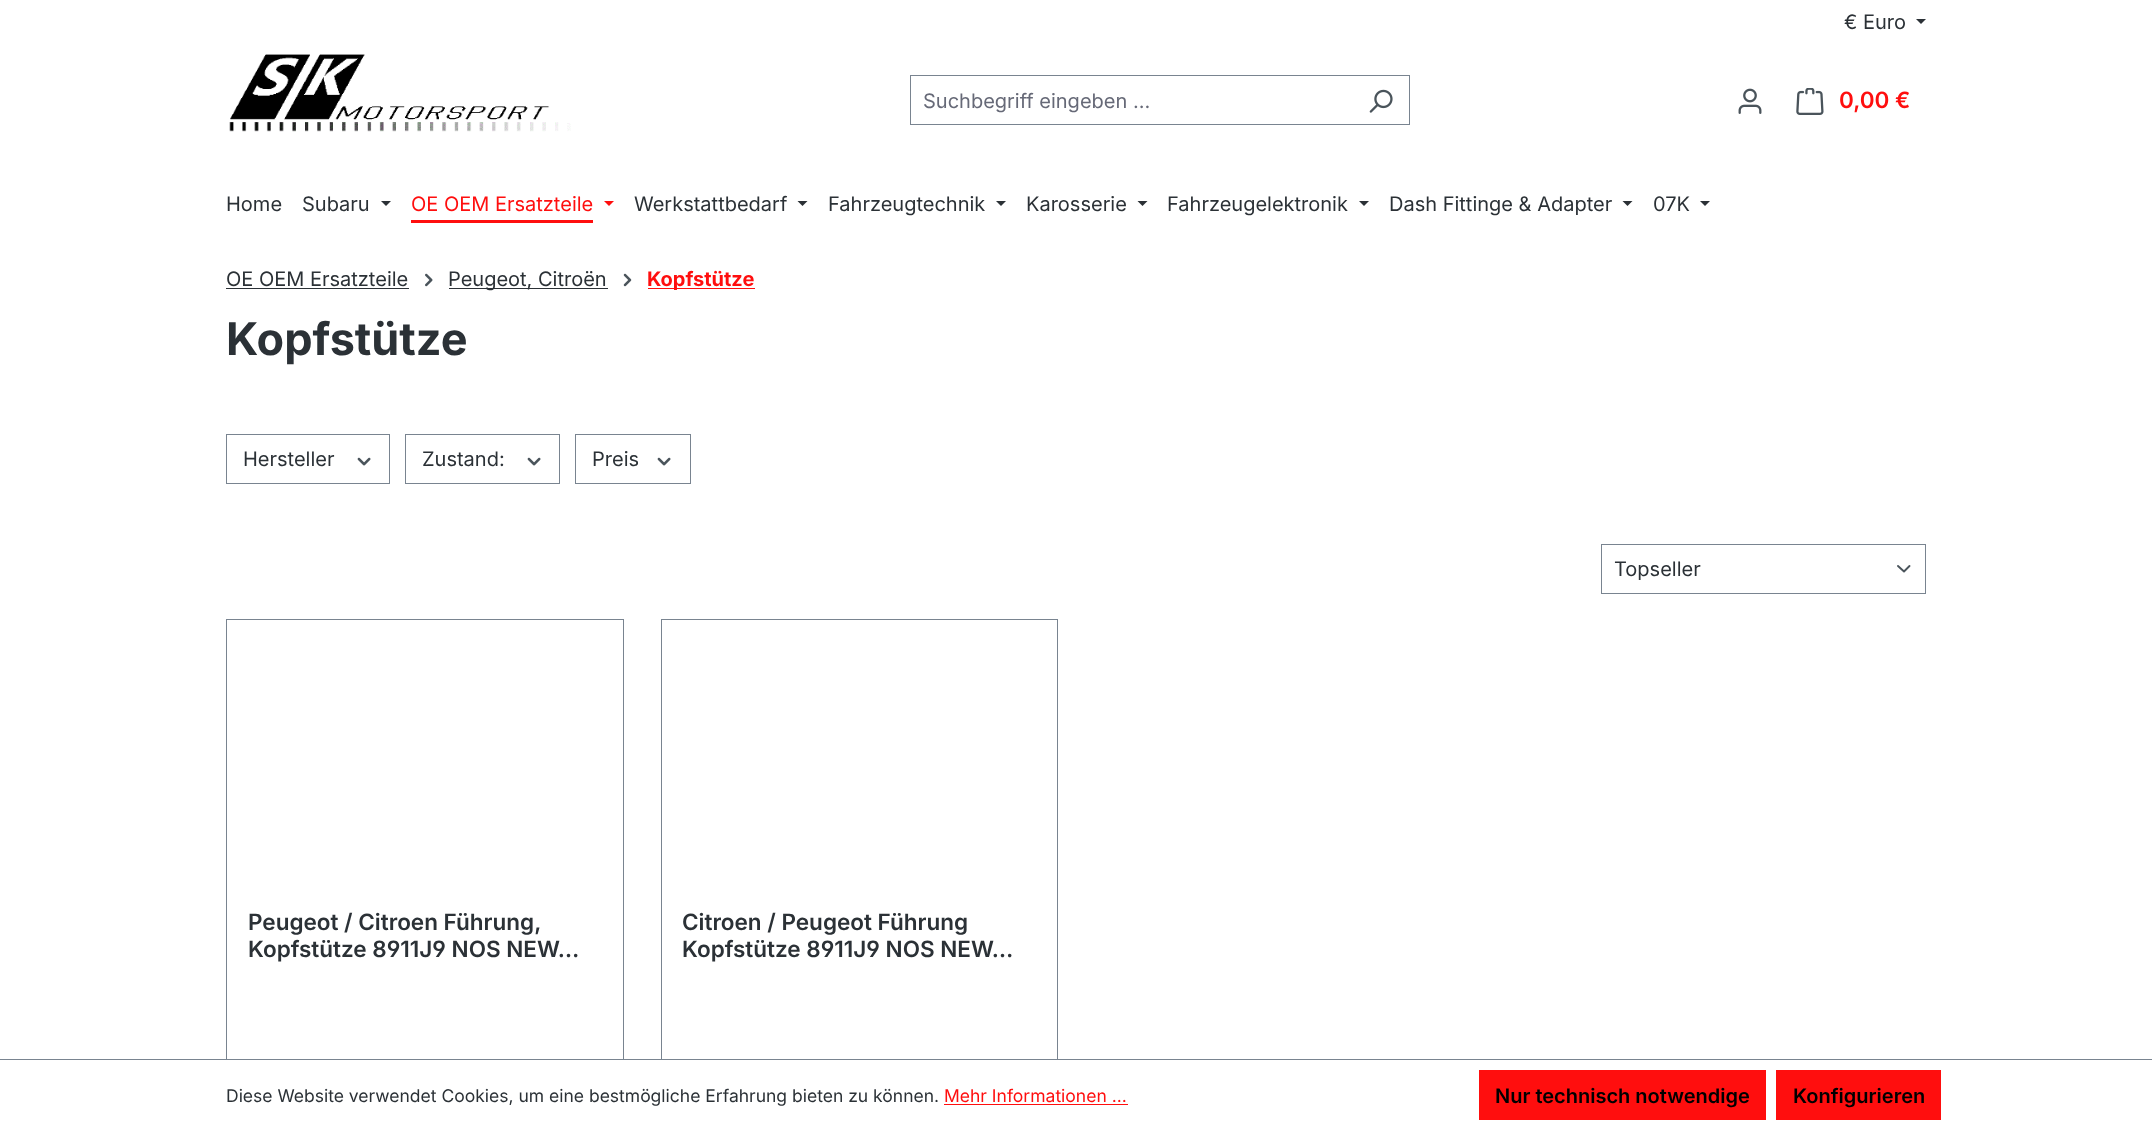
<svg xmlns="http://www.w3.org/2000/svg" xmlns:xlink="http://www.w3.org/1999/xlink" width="2152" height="1129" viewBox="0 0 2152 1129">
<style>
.cls-1{font:20px Inter;fill:#2b3136}
.cls-2{font:20px Inter;fill:#666977}
.cls-3{font:600 22.5px Inter;fill:#ff0e0e}
.cls-4{font:20px Inter;fill:#ff0e0e}
.cls-5{font:bold 20px Inter;fill:#ff0e0e}
.cls-6{font:bold 45px Inter;fill:#2b3136}
.cls-7{font:600 22.5px Inter;fill:#2b3136}
.cls-8{font:600 22.5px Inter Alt;fill:#2b3136}
.cls-9{font:17.5px Inter;fill:#2b3136}
.cls-10{font:17.5px Inter;fill:#ff0e0e}
.cls-11{font:600 20px Inter;fill:#000000}
</style>
<rect width="100%" height="100%" fill="#ffffff"/>
<path fill="#2b3136" d="M1916 19H1926L1921 24Z"/>
<image xlink:href="image0.png" x="229" y="54" width="342" height="78"/>
<rect fill="#798490" x="910" y="75" width="500" height="1"/>
<rect fill="#798490" x="910" y="124" width="443" height="1"/>
<rect fill="#798490" x="910" y="75" width="1" height="50"/>
<rect fill="#798490" x="1409" y="75" width="1" height="50"/>
<rect fill="#798490" x="1351" y="124" width="59" height="1"/>
<image xlink:href="image1.png" x="1369" y="89" width="24" height="24"/>
<image xlink:href="image2.png" x="1738" y="88" width="24" height="26"/>
<image xlink:href="image3.png" x="1796" y="88" width="28" height="27"/>
<path fill="#2b3136" d="M381 201H391L386 206Z"/>
<rect fill="#ff0e0e" x="411" y="220" width="182" height="3"/>
<path fill="#ff0e0e" d="M604 201H614L609 206Z"/>
<path fill="#2b3136" d="M797.5 201H807.5L802.5 206Z"/>
<path fill="#2b3136" d="M996 201H1006L1001 206Z"/>
<path fill="#2b3136" d="M1137.5 201H1147.5L1142.5 206Z"/>
<path fill="#2b3136" d="M1359 201H1369L1364 206Z"/>
<path fill="#2b3136" d="M1622.5 201H1632.5L1627.5 206Z"/>
<path fill="#2b3136" d="M1700 201H1710L1705 206Z"/>
<rect fill="#2b3136" x="226" y="288" width="183" height="1"/>
<image xlink:href="image4.png" x="425" y="273" width="8" height="14"/>
<rect fill="#2b3136" x="449" y="288" width="159" height="1"/>
<image xlink:href="image5.png" x="623" y="273" width="9" height="14"/>
<rect fill="#ff0e0e" x="648" y="288" width="107" height="1"/>
<rect fill="none" stroke="#798490" x="226.5" y="434.5" width="163" height="49"/>
<image xlink:href="image6.png" x="357" y="457" width="14" height="9"/>
<rect fill="none" stroke="#798490" x="405.5" y="434.5" width="154" height="49"/>
<image xlink:href="image6.png" x="527" y="457" width="14" height="9"/>
<rect fill="none" stroke="#798490" x="575.5" y="434.5" width="115" height="49"/>
<image xlink:href="image6.png" x="657" y="457" width="14" height="9"/>
<path fill="none" stroke="#4a545b" stroke-width="1.9" stroke-linecap="round" stroke-linejoin="round" d="M1898 566L1904 571.5L1909.5 566"/>
<rect fill="none" stroke="#798490" x="1601.5" y="544.5" width="324" height="49"/>
<rect fill="none" stroke="#798490" x="226.5" y="619.5" width="397" height="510"/>
<rect fill="none" stroke="#798490" x="661.5" y="619.5" width="396" height="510"/>
<rect fill="#ffffff" x="226" y="1060" width="832" height="69"/>
<rect fill="#798490" x="0" y="1059" width="2152" height="1"/>
<rect fill="#ff0e0e" x="944" y="1104" width="184" height="1"/>
<rect fill="#ff0e0e" x="1479" y="1070" width="287" height="50"/>
<rect fill="#ff0e0e" x="1776" y="1070" width="165" height="50"/>
<text class="cls-1" x="1844" y="29">€ Euro</text>
<text class="cls-2" x="923" y="108">Suchbegriff eingeben ...</text>
<text class="cls-3" x="1839" y="108">0,00 €</text>
<text class="cls-1" x="226" y="211">Home</text>
<text class="cls-1" x="302" y="211">Subaru</text>
<text class="cls-4" x="411" y="211">OE OEM Ersatzteile</text>
<text class="cls-1" x="634" y="211">Werkstattbedarf</text>
<text class="cls-1" x="828" y="211">Fahrzeugtechnik</text>
<text class="cls-1" x="1026" y="211">Karosserie</text>
<text class="cls-1" x="1167" y="211">Fahrzeugelektronik</text>
<text class="cls-1" x="1389" y="211">Dash Fittinge &amp; Adapter</text>
<text class="cls-1" x="1653" y="211">07K</text>
<text class="cls-1" x="226" y="286">OE OEM Ersatzteile</text>
<text class="cls-1" x="448" y="286">Peugeot, Citroën</text>
<text class="cls-5" x="647" y="286">Kopfstütze</text>
<text class="cls-6" x="226" y="355">Kopfstütze</text>
<text class="cls-1" x="243" y="466">Hersteller</text>
<text class="cls-1" x="422" y="466">Zustand:</text>
<text class="cls-1" x="592" y="466">Preis</text>
<text class="cls-1" x="1614" y="576">Topseller</text>
<text class="cls-7" x="248" y="930">Peugeot / Citroen Führung,</text>
<text class="cls-8" x="248" y="957">Kopfstütze 8911J9 NOS NEW…</text>
<text class="cls-7" x="682" y="930">Citroen / Peugeot Führung</text>
<text class="cls-8" x="682" y="957">Kopfstütze 8911J9 NOS NEW…</text>
<text class="cls-9" x="226" y="1102">Diese Website verwendet Cookies, um eine bestmögliche Erfahrung bieten zu können.</text>
<text class="cls-10" x="944" y="1102">Mehr Informationen ...</text>
<text class="cls-11" x="1495" y="1103">Nur technisch notwendige</text>
<text class="cls-11" x="1793" y="1103">Konfigurieren</text>
</svg>
